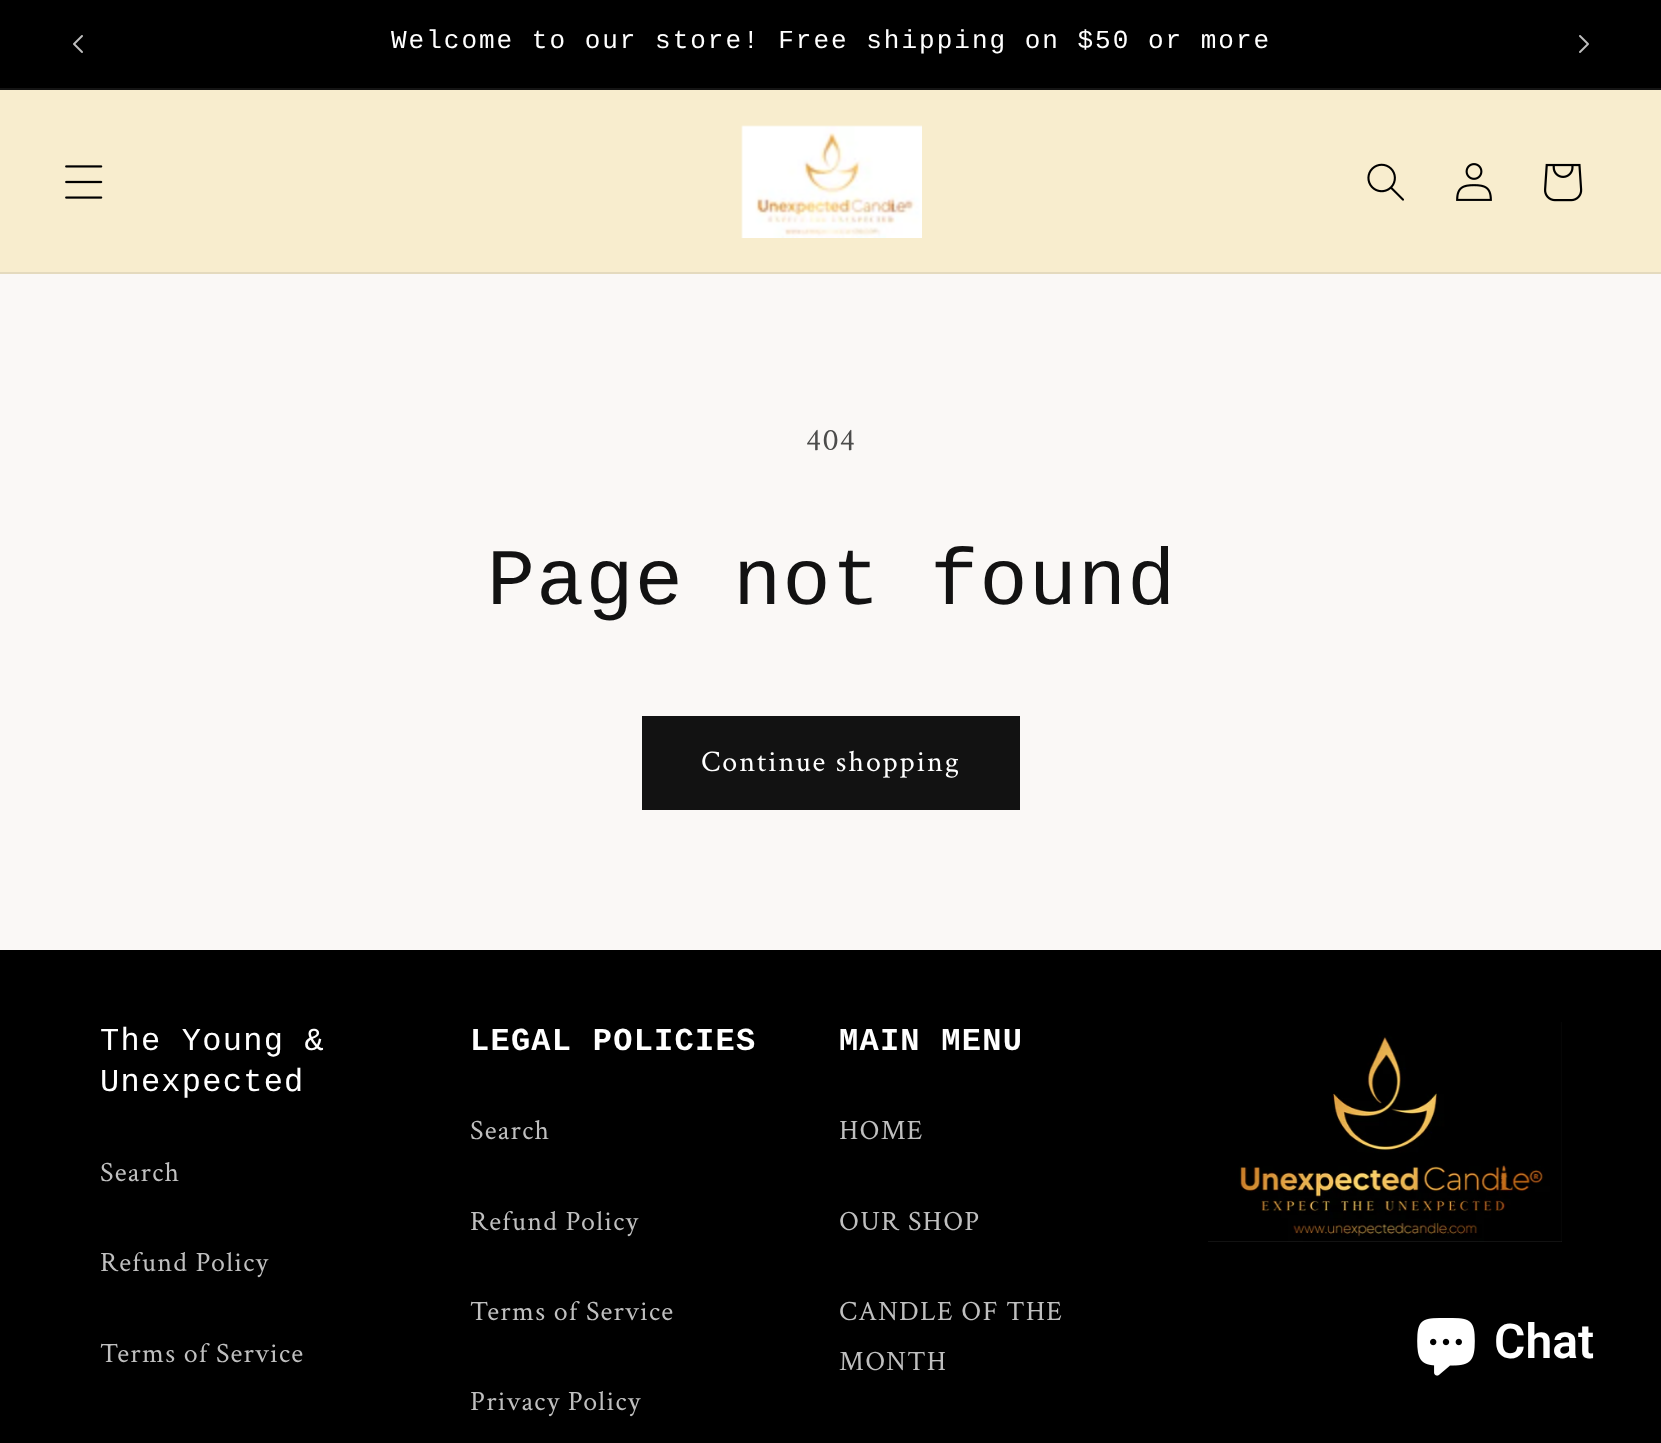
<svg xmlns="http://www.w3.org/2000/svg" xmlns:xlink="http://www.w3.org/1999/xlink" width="1661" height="1443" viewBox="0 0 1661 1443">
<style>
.cls-1{font:26px Liberation Mono;letter-spacing:2px;fill:#ffffff}
.cls-2{font:32px Crimson Text;letter-spacing:1.25px;fill:#4c4c4b}
.cls-3{font:80px Liberation Mono;letter-spacing:1.25px;fill:#121212}
.cls-4{font:30px Crimson Text;letter-spacing:2px;fill:#ffffff}
.cls-5{font:32px Liberation Mono;letter-spacing:1.25px;fill:#ffffff}
.cls-6{font:28px Crimson Text;letter-spacing:1.25px;fill:#bfbfbf}
.cls-7{font:bold 32px Liberation Mono;letter-spacing:1.25px;fill:#ffffff}
.cls-8{font:600 48px Roboto;fill:#ffffff}
</style>
<rect width="100%" height="100%" fill="#faf8f6"/>
<rect fill="#000000" x="0" y="0" width="1661" height="88"/>
<rect fill="#141414" x="0" y="88" width="1661" height="2"/>
<image xlink:href="image0.png" x="73" y="35" width="10" height="18"/>
<image xlink:href="image1.png" x="1579" y="35" width="10" height="18"/>
<rect fill="#f8edce" x="0" y="90" width="1661" height="182"/>
<rect fill="#e4dabe" x="0" y="272" width="1661" height="2"/>
<image xlink:href="image2.png" x="65" y="165" width="38" height="34"/>
<image xlink:href="image3.png" x="741" y="125" width="181" height="113"/>
<image xlink:href="image4.png" x="1367" y="163" width="37" height="38"/>
<image xlink:href="image5.png" x="1456" y="163" width="36" height="38"/>
<image xlink:href="image6.png" x="1544" y="163" width="39" height="39"/>
<rect fill="#121212" x="642" y="716" width="378" height="94"/>
<rect fill="#000000" x="0" y="950" width="1661" height="493"/>
<image xlink:href="image7.png" x="1208" y="1022" width="354" height="220"/>
<image xlink:href="image8.png" x="1417" y="1318" width="58" height="58"/>
<text class="cls-1" x="391" y="48">Welcome to our store! Free shipping on $50 or more</text>
<text class="cls-2" x="806" y="450">404</text>
<text class="cls-3" x="487" y="604">Page not found</text>
<text class="cls-4" x="701" y="771">Continue shopping</text>
<text class="cls-5"><tspan x="100" y="1050">The Young &amp;</tspan><tspan x="100" y="1091">Unexpected</tspan></text>
<text class="cls-6" x="100" y="1181">Search</text>
<text class="cls-6" x="100" y="1271">Refund Policy</text>
<text class="cls-6" x="100" y="1362">Terms of Service</text>
<text class="cls-7" x="470" y="1050">LEGAL POLICIES</text>
<text class="cls-6" x="470" y="1139">Search</text>
<text class="cls-6" x="470" y="1230">Refund Policy</text>
<text class="cls-6" x="470" y="1320">Terms of Service</text>
<text class="cls-6" x="470" y="1410">Privacy Policy</text>
<text class="cls-7" x="839" y="1050">MAIN MENU</text>
<text class="cls-6" x="839" y="1139">HOME</text>
<text class="cls-6" x="839" y="1230">OUR SHOP</text>
<text class="cls-6"><tspan x="839" y="1320">CANDLE OF THE</tspan><tspan x="839" y="1370">MONTH</tspan></text>
<text class="cls-8" x="1494" y="1358">Chat</text>
</svg>
